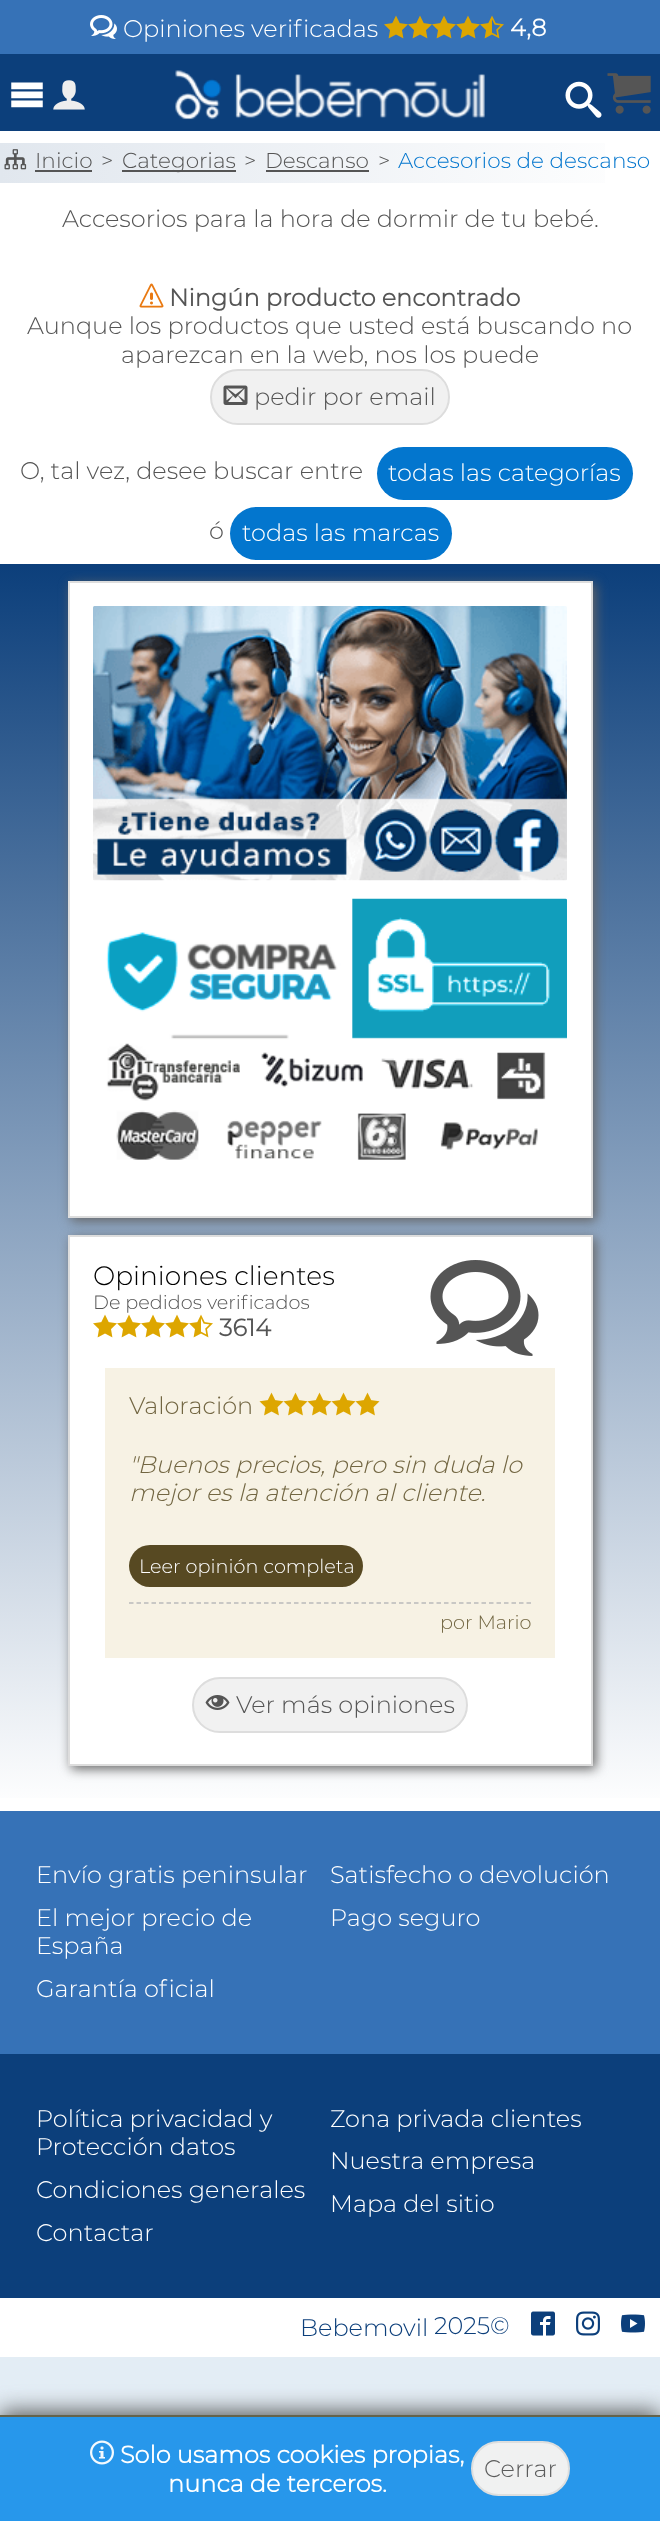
<svg xmlns="http://www.w3.org/2000/svg" xmlns:xlink="http://www.w3.org/1999/xlink" width="660" height="2521" viewBox="0 0 660 2521">
<style>
.cls-1{font:300 24px Montserrat;fill:#ffffff}
.cls-2{font:bold 24px Montserrat;fill:#ffffff}
.cls-3{font:300 21.6px Montserrat;fill:#555555}
.cls-4{font:300 21.6px Montserrat;fill:#0376ce}
.cls-5{font:300 24px Montserrat;fill:#555555}
.cls-6{font:bold 24px Montserrat;fill:#555555}
.cls-7{font:300 26.5px Montserrat;fill:#000000}
.cls-8{font:300 19.25px Montserrat;fill:#555555}
.cls-9{font:300 24px Montserrat;fill:#726642}
.cls-10{font:italic 300 24px Montserrat;fill:#726642}
.cls-11{font:300 19.25px Montserrat;fill:#ffffff}
.cls-12{font:300 19.25px Montserrat;fill:#726642}
.cls-13{font:300 24px Montserrat;fill:#0c3f7b}
.cls-14{font:300 24px Montserrat;fill:#5c5d5d}
</style>
<defs>
<linearGradient id="g1" gradientUnits="userSpaceOnUse" x1="0" y1="163" x2="660" y2="163"><stop offset="0" stop-color="#e1e7ee"/><stop offset="1" stop-color="#ffffff"/></linearGradient>
<linearGradient id="g2" gradientUnits="userSpaceOnUse" x1="330" y1="1811" x2="330" y2="564"><stop offset="0" stop-color="#ffffff"/><stop offset="1" stop-color="#0c3f7b"/></linearGradient>
</defs>
<rect width="100%" height="100%" fill="#e3edf5"/>
<rect fill="#ffffff" x="0" y="131" width="660" height="2226"/>
<rect fill="#0c3f7b" x="0" y="54" width="660" height="77"/>
<rect fill="#3672b7" x="0" y="0" width="660" height="54"/>
<image xlink:href="image0.png" x="90" y="15" width="27" height="24"/>
<image xlink:href="image1.png" x="384" y="15" width="24" height="24"/>
<image xlink:href="image1.png" x="408" y="15" width="24" height="24"/>
<image xlink:href="image1.png" x="432" y="15" width="24" height="24"/>
<image xlink:href="image1.png" x="456" y="15" width="24" height="24"/>
<image xlink:href="image2.png" x="480" y="15" width="24" height="24"/>
<image xlink:href="image3.png" x="11" y="82" width="32" height="26"/>
<image xlink:href="image4.png" x="53" y="80" width="32" height="30"/>
<image xlink:href="image5.png" x="175" y="70" width="310" height="50"/>
<image xlink:href="image6.png" x="565" y="81" width="37" height="37"/>
<image xlink:href="image7.png" x="607" y="73" width="44" height="41"/>
<rect fill="url(#g1)" x="0" y="143" width="605" height="40"/>
<image xlink:href="image8.png" x="4" y="149" width="23" height="21"/>
<rect fill="#555555" x="35" y="170" width="57" height="2"/>
<rect fill="#555555" x="122" y="170" width="114" height="2"/>
<rect fill="#555555" x="266" y="170" width="103" height="2"/>
<image xlink:href="image9.png" x="139" y="283" width="25" height="25"/>
<rect fill="#f1f1f1" stroke="#dddddd" stroke-width="2" x="211" y="370" width="238" height="54" rx="27"/>
<image xlink:href="image10.png" x="223" y="385" width="25" height="20"/>
<rect fill="#0376ce" x="377" y="447" width="256" height="53" rx="26.5"/>
<rect fill="#0376ce" x="230" y="507" width="222" height="53" rx="26.5"/>
<rect fill="url(#g2)" x="0" y="564" width="660" height="1234"/>
<rect fill="#656565" filter="blur(6px)" x="71" y="584" width="525" height="637"/>
<rect fill="#ffffff" stroke="#dddddd" stroke-width="2" x="69" y="582" width="523" height="635"/>
<image xlink:href="image11.png" x="93" y="606" width="474" height="275"/>
<image xlink:href="image12.png" x="106" y="898" width="461" height="262"/>
<rect fill="#656565" filter="blur(6px)" x="71" y="1238" width="525" height="531"/>
<rect fill="#ffffff" stroke="#dddddd" stroke-width="2" x="69" y="1236" width="523" height="529"/>
<image xlink:href="image13.png" x="93" y="1314" width="24" height="24"/>
<image xlink:href="image13.png" x="117" y="1314" width="24" height="24"/>
<image xlink:href="image13.png" x="141" y="1314" width="24" height="24"/>
<image xlink:href="image13.png" x="165" y="1314" width="24" height="24"/>
<image xlink:href="image14.png" x="189" y="1314" width="24" height="24"/>
<image xlink:href="image15.png" x="430" y="1260" width="109" height="96"/>
<rect fill="#f7f2e4" x="105" y="1368" width="450" height="290"/>
<image xlink:href="image16.png" x="259" y="1392" width="25" height="24"/>
<image xlink:href="image17.png" x="283" y="1392" width="25" height="24"/>
<image xlink:href="image17.png" x="307" y="1392" width="25" height="24"/>
<image xlink:href="image17.png" x="331" y="1392" width="25" height="24"/>
<image xlink:href="image17.png" x="355" y="1392" width="25" height="24"/>
<rect fill="#574922" x="129" y="1545" width="234" height="42" rx="21"/>
<path fill="none" stroke="#bbbbbb" stroke-width="1.5" stroke-dasharray="4.5 3" d="M129 1603H531"/>
<rect fill="#f1f1f1" stroke="#dddddd" stroke-width="2" x="193" y="1678" width="274" height="54" rx="27"/>
<image xlink:href="image18.png" x="205" y="1695" width="25" height="15"/>
<rect fill="#3672b7" x="0" y="1811" width="660" height="243"/>
<rect fill="#0c3f7b" x="0" y="2054" width="660" height="244"/>
<image xlink:href="image19.png" x="531" y="2311" width="24" height="25"/>
<image xlink:href="image20.png" x="576" y="2311" width="24" height="25"/>
<image xlink:href="image21.png" x="621" y="2314" width="24" height="19"/>
<rect fill="#5c5d5d" filter="blur(11px)" x="0" y="2411" width="660" height="106"/>
<rect fill="#2797eb" x="0" y="2417" width="660" height="104"/>
<rect fill="#64634b" x="0" y="2415" width="660" height="2"/>
<image xlink:href="image22.png" x="90" y="2440" width="24" height="25"/>
<rect fill="#f0f1f1" stroke="#dddede" stroke-width="2" x="472" y="2442" width="97" height="53" rx="26.5"/>
<text class="cls-1" x="123" y="37">Opiniones verificadas</text>
<text class="cls-2" x="510" y="36">4,8</text>
<text class="cls-3" x="35" y="168">Inicio</text>
<text class="cls-3" x="101" y="168">&gt;</text>
<text class="cls-3" x="122" y="168">Categorias</text>
<text class="cls-3" x="244" y="168">&gt;</text>
<text class="cls-3" x="265" y="168">Descanso</text>
<text class="cls-3" x="378" y="168">&gt;</text>
<text class="cls-4" x="398" y="168">Accesorios de descanso</text>
<text class="cls-5" x="62" y="227">Accesorios para la hora de dormir de tu bebé.</text>
<text class="cls-6" x="169" y="306">Ningún producto encontrado</text>
<text class="cls-5" x="27" y="334">Aunque los productos que usted está buscando no</text>
<text class="cls-5" x="121" y="363">aparezcan en la web, nos los puede</text>
<text class="cls-5" x="254" y="405">pedir por email</text>
<text class="cls-5" x="20" y="479">O, tal vez, desee buscar entre</text>
<text class="cls-1" x="388" y="481">todas las categorías</text>
<text class="cls-5" x="209" y="539">ó</text>
<text class="cls-1" x="242" y="541">todas las marcas</text>
<text class="cls-7" x="93" y="1285">Opiniones clientes</text>
<text class="cls-8" x="93" y="1309">De pedidos verificados</text>
<text class="cls-6" x="219" y="1336">3614</text>
<text class="cls-9" x="129" y="1414">Valoración</text>
<text class="cls-10"><tspan x="129" y="1473">"Buenos precios, pero sin duda lo</tspan><tspan x="129" y="1501">mejor es la atención al cliente.</tspan></text>
<text class="cls-11" x="139" y="1573">Leer opinión completa</text>
<text class="cls-12" x="440" y="1629">por Mario</text>
<text class="cls-5" x="236" y="1713">Ver más opiniones</text>
<text class="cls-1"><tspan x="36" y="1883">Envío gratis peninsular</tspan><tspan x="36" y="1926">El mejor precio de</tspan><tspan x="36" y="1954">España</tspan><tspan x="36" y="1997">Garantía oficial</tspan></text>
<text class="cls-1"><tspan x="330" y="1883">Satisfecho o devolución</tspan><tspan x="330" y="1926">Pago seguro</tspan></text>
<text class="cls-1"><tspan x="36" y="2127">Política privacidad y</tspan><tspan x="36" y="2155">Protección datos</tspan><tspan x="36" y="2198">Condiciones generales</tspan><tspan x="36" y="2241">Contactar</tspan></text>
<text class="cls-1"><tspan x="330" y="2127">Zona privada clientes</tspan><tspan x="330" y="2169">Nuestra empresa</tspan><tspan x="330" y="2212">Mapa del sitio</tspan></text>
<text class="cls-13" x="300" y="2336">Bebemovil</text>
<text class="cls-13" x="434" y="2334">2025©</text>
<text class="cls-2" x="120" y="2463">Solo usamos cookies propias,</text>
<text class="cls-2" x="168" y="2492">nunca de terceros.</text>
<text class="cls-14" x="484" y="2477">Cerrar</text>
</svg>
